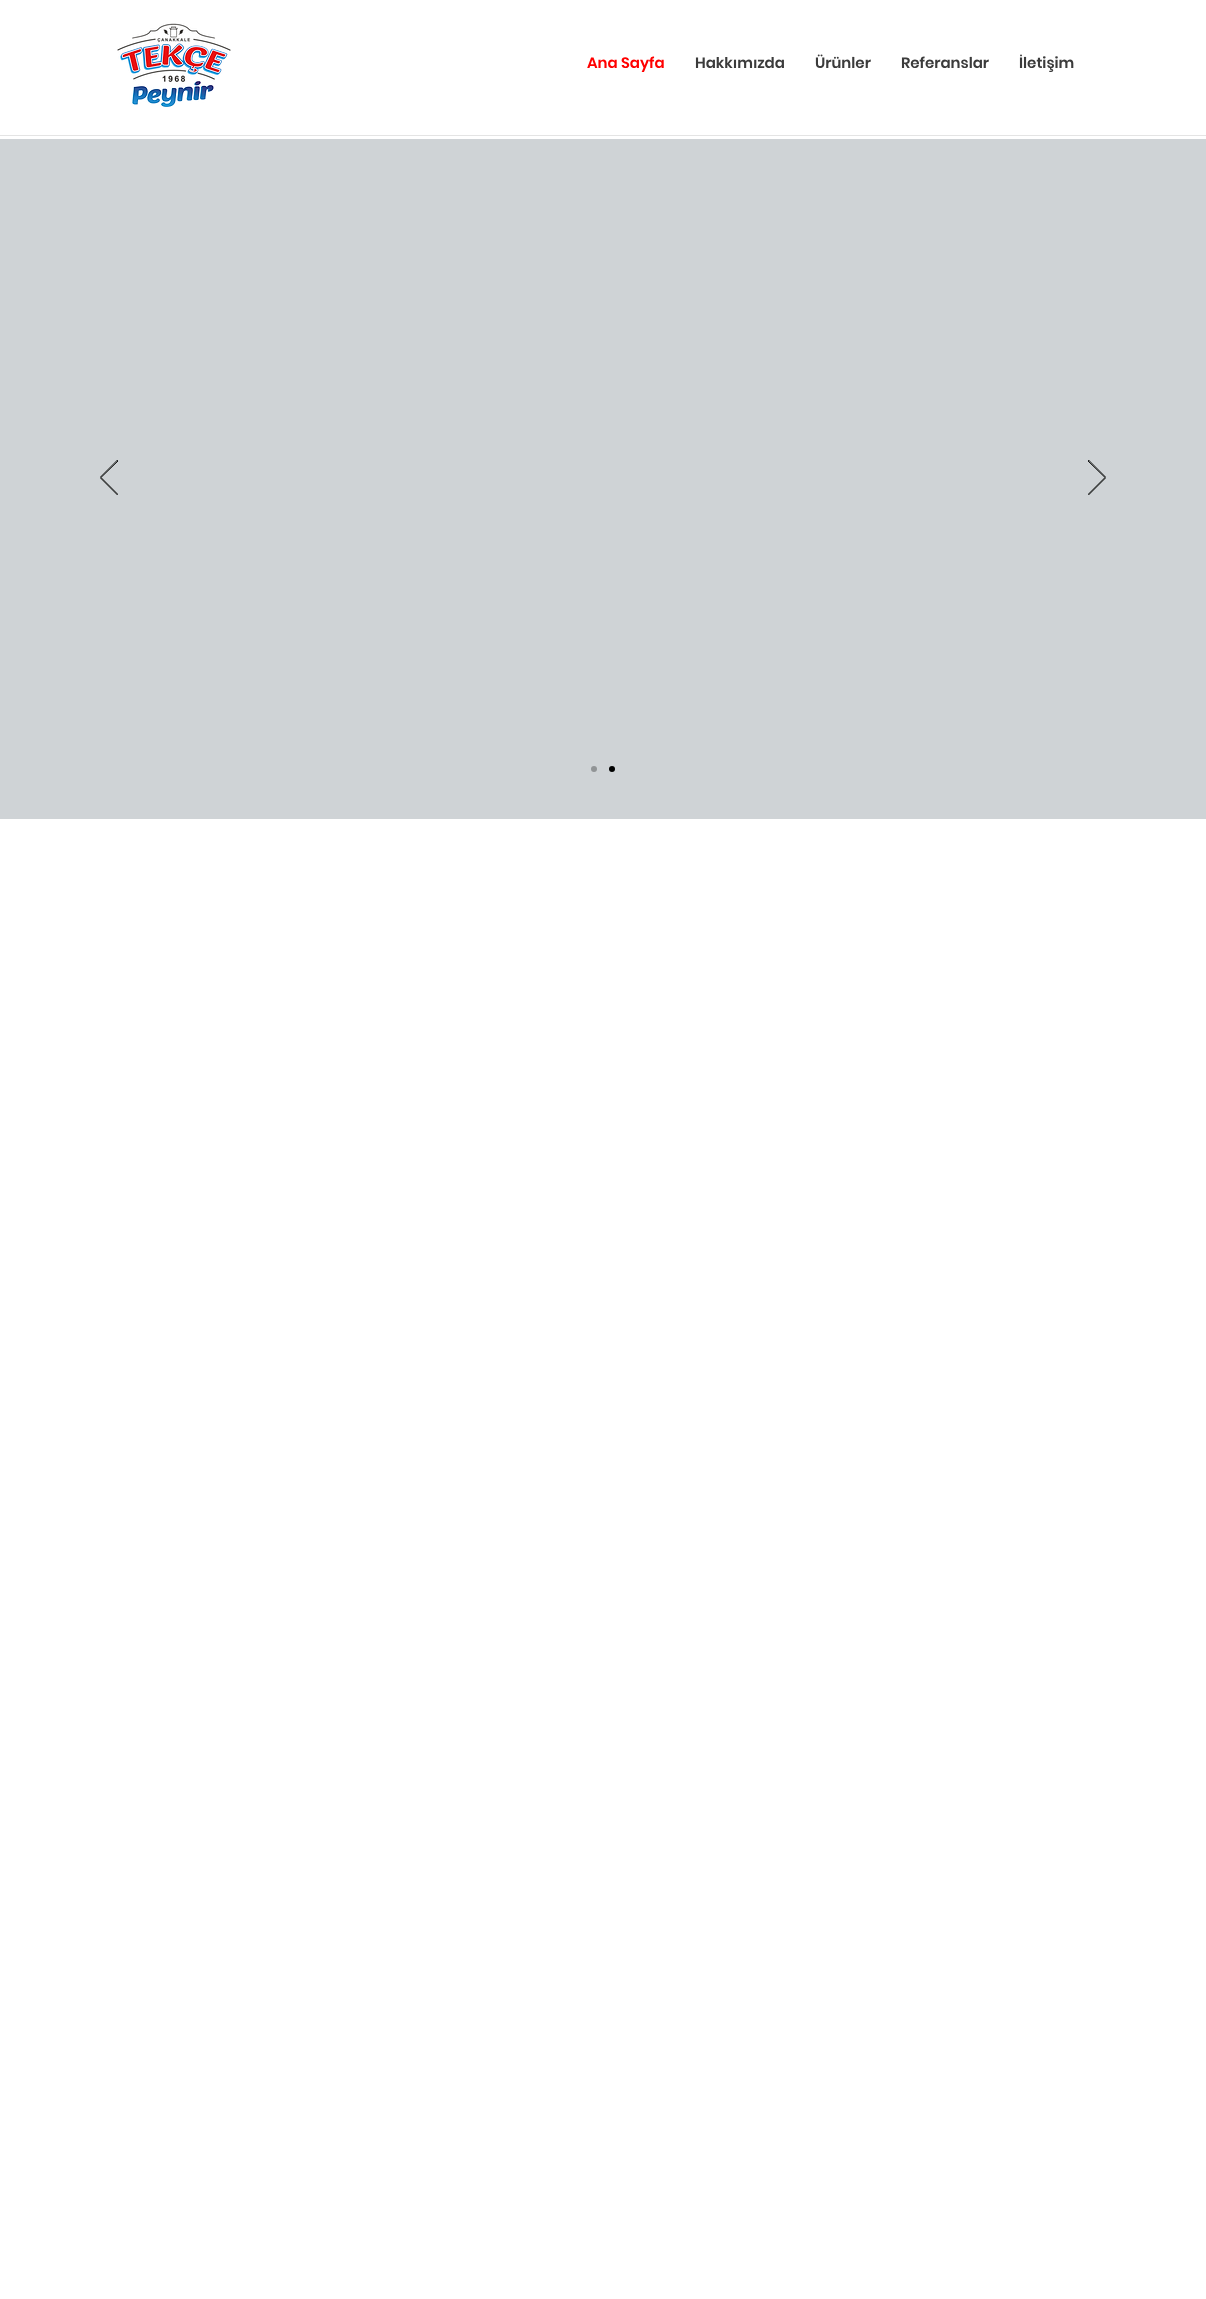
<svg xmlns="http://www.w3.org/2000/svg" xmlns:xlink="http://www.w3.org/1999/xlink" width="1206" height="2299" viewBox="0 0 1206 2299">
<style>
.cls-1{font:600 15px Poppins;fill:#ff0000}
.cls-2{font:600 15px Poppins;fill:#3b3b3b}
</style>
<defs>
<clipPath id="clip1"><rect x="100" y="460" width="18" height="35"/></clipPath>
<clipPath id="clip2"><rect x="1088" y="460" width="18" height="35"/></clipPath>
</defs>
<rect width="100%" height="100%" fill="#ffffff"/>
<image xlink:href="image0.png" x="117" y="23" width="114" height="84"/>
<rect fill="#e4e4e4" x="0" y="135" width="1206" height="1"/>
<rect fill="#cfd3d6" x="0" y="139" width="1206" height="680"/>
<g clip-path="url(#clip1)">
<path fill="none" stroke="#000000" stroke-width="0.9" d="M117.5 495L100 477.5L117.5 460L118 461L101 477.5L118 494.5Z"/>
</g>
<g clip-path="url(#clip2)">
<path fill="none" stroke="#000000" stroke-width="0.9" d="M1088.5 495L1106 477.5L1088.5 460L1088 461L1105 477.5L1088 494.5Z"/>
</g>
<circle fill="#919496" cx="594" cy="769" r="3"/>
<circle fill="#000000" cx="612" cy="769" r="3"/>
<text class="cls-1" x="587" y="68">Ana Sayfa</text>
<text class="cls-2" x="695" y="68">Hakkımızda</text>
<text class="cls-2" x="815" y="68">Ürünler</text>
<text class="cls-2" x="901" y="68">Referanslar</text>
<text class="cls-2" x="1019" y="68">İletişim</text>
</svg>
